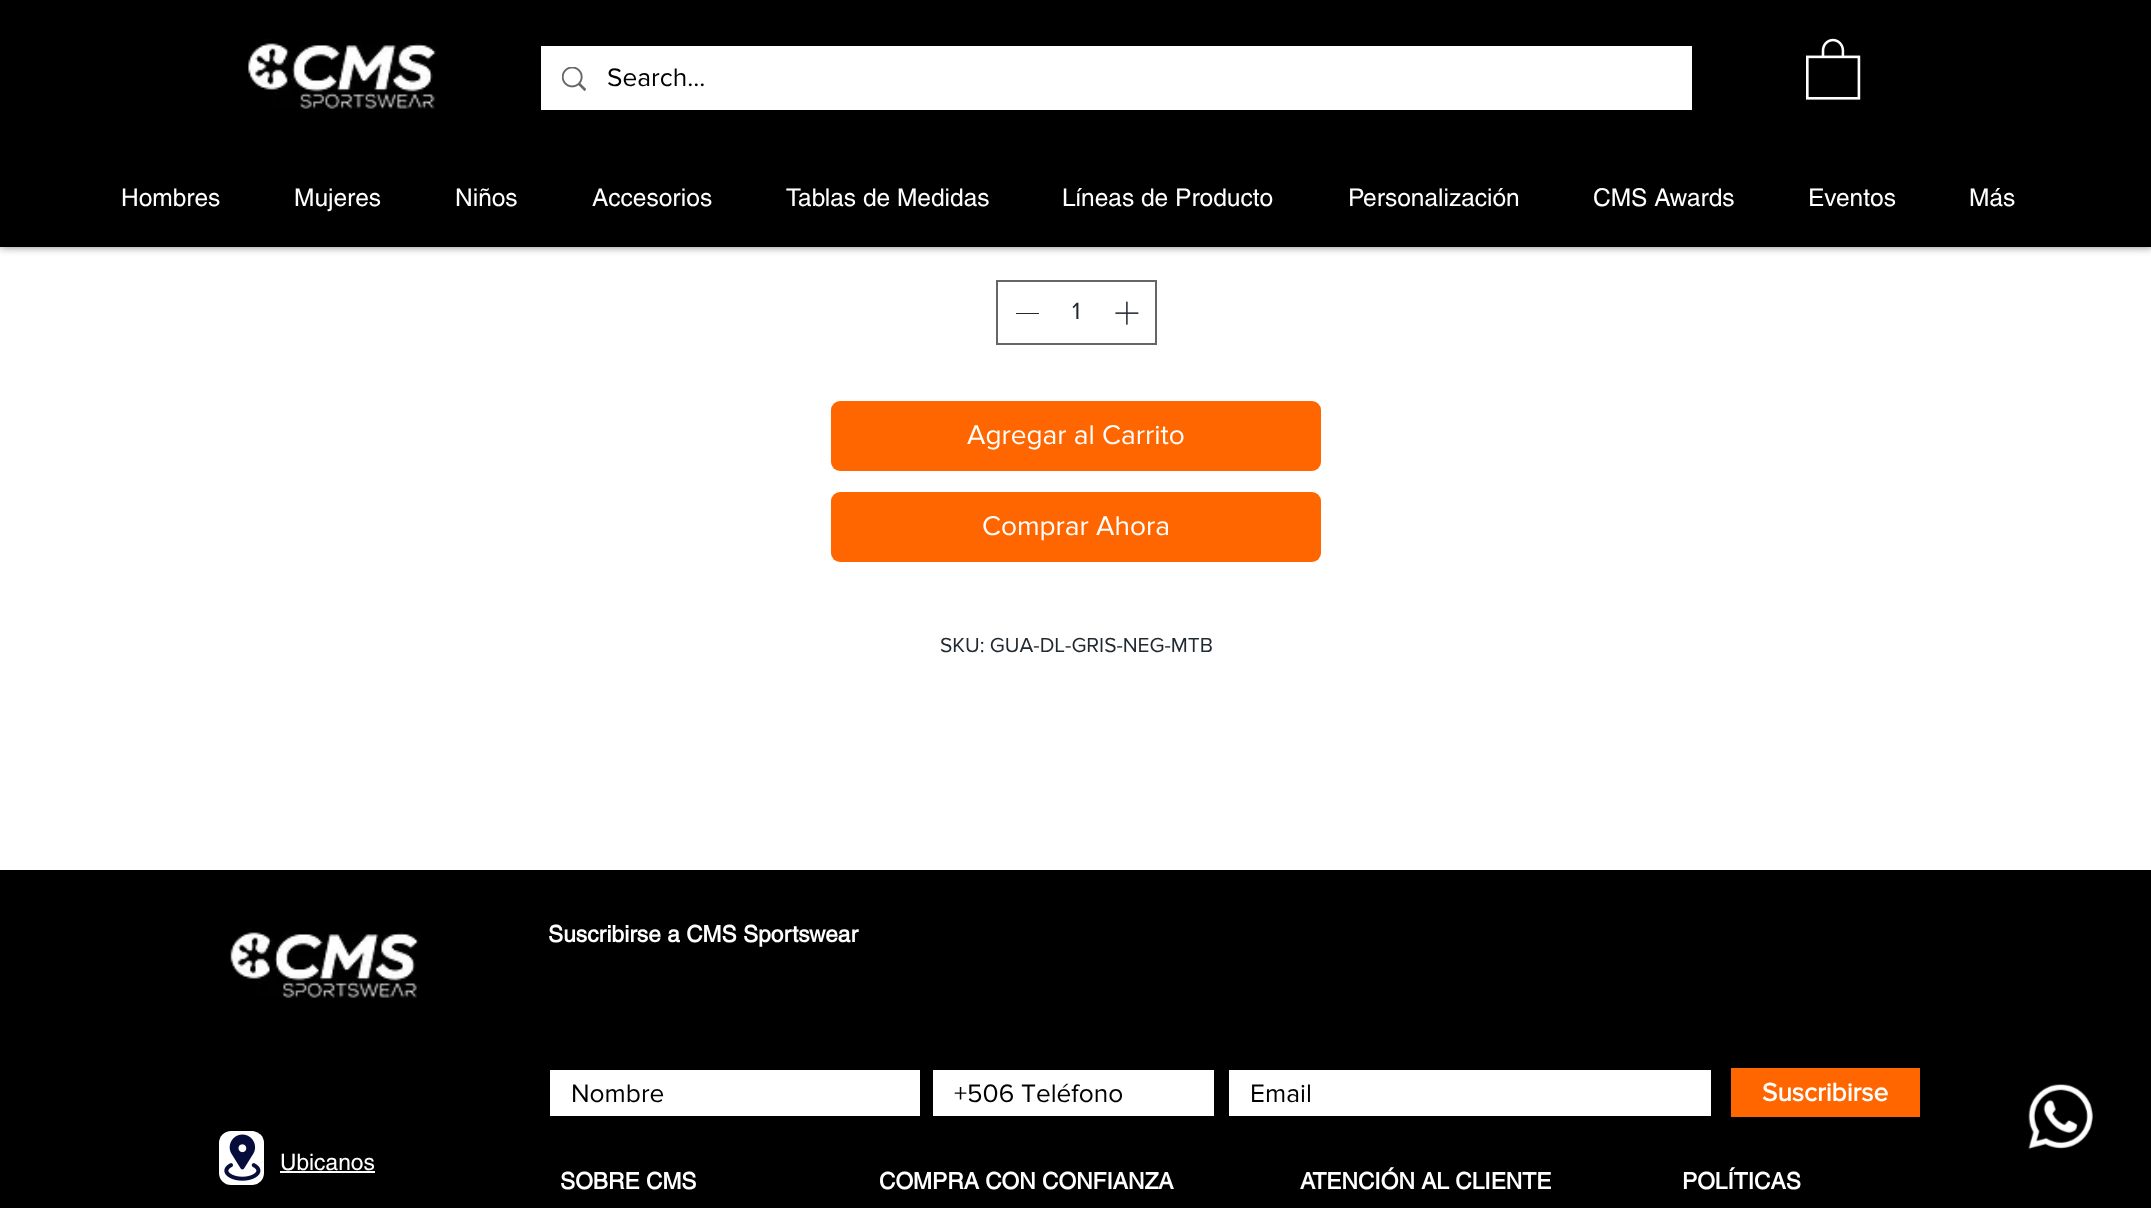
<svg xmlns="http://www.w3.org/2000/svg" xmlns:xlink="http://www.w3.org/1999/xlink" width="2151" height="1208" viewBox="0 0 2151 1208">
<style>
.cls-1{font:26.25px 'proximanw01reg';fill:#000000}
.cls-2{font:24.5px helvetica;fill:#ffffff}
.cls-3{font:24.5px 'proximanw01reg';fill:#222a31}
.cls-4{font:28px 'proximanw01reg';fill:#ffffff}
.cls-5{font:21px 'proximanw01reg';fill:#222a31}
.cls-6{font:bold 22.75px helvetica;fill:#ffffff}
.cls-7{font:bold 26.25px 'proximanw01reg';fill:#ffffff}
.cls-8{font:22.75px helvetica;fill:#ffffff}
</style>
<rect width="100%" height="100%" fill="#ffffff"/>
<rect fill="#000000" fill-opacity="0.5" filter="blur(4.5px)" x="0" y="0" width="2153" height="247"/>
<rect fill="#000000" x="0" y="0" width="2151" height="247"/>
<image xlink:href="image0.png" x="248" y="39" width="189" height="70"/>
<rect fill="#ffffff" x="541" y="46" width="1151" height="64"/>
<image xlink:href="image1.png" x="562" y="67" width="24" height="24"/>
<image xlink:href="image2.png" x="1806" y="38" width="55" height="62"/>
<rect fill="none" stroke="#666666" stroke-width="2" x="997" y="281" width="159" height="63"/>
<rect fill="#222a31" x="1016" y="313" width="23" height="1"/>
<image xlink:href="image3.png" x="1115" y="301" width="24" height="24"/>
<rect fill="#ff6600" x="831" y="401" width="490" height="70" rx="9"/>
<rect fill="#ff6600" x="831" y="492" width="490" height="70" rx="9"/>
<rect fill="#000000" x="0" y="870" width="2151" height="338"/>
<image xlink:href="image4.png" x="230" y="928" width="190" height="70"/>
<rect fill="#ffffff" x="550" y="1070" width="370" height="46"/>
<rect fill="#ffffff" x="933" y="1070" width="281" height="46"/>
<rect fill="#ffffff" x="1229" y="1070" width="482" height="46"/>
<rect fill="#ff6600" x="1731" y="1068" width="189" height="49"/>
<rect fill="#ffffff" x="219" y="1131" width="45" height="54" rx="12"/>
<image xlink:href="image5.png" x="224" y="1134" width="37" height="47"/>
<rect fill="#ffffff" x="280" y="1171" width="95" height="2"/>
<image xlink:href="image6.png" x="2028" y="1084" width="65" height="65"/>
<text class="cls-1" x="607" y="86">Search...</text>
<text class="cls-2" x="121" y="206">Hombres</text>
<text class="cls-2" x="294" y="206">Mujeres</text>
<text class="cls-2" x="455" y="206">Niños</text>
<text class="cls-2" x="592" y="206">Accesorios</text>
<text class="cls-2" x="786" y="206">Tablas de Medidas</text>
<text class="cls-2" x="1062" y="206">Líneas de Producto</text>
<text class="cls-2" x="1348" y="206">Personalización</text>
<text class="cls-2" x="1593" y="206">CMS Awards</text>
<text class="cls-2" x="1808" y="206">Eventos</text>
<text class="cls-2" x="1969" y="206">Más</text>
<text class="cls-3" x="1072" y="319">1</text>
<text class="cls-4" x="967" y="444">Agregar al Carrito</text>
<text class="cls-4" x="982" y="535">Comprar Ahora</text>
<text class="cls-5" x="940" y="652">SKU: GUA-DL-GRIS-NEG-MTB</text>
<text class="cls-6" x="548" y="942">Suscribirse a CMS Sportswear</text>
<text class="cls-1" x="571" y="1102">Nombre</text>
<text class="cls-1" x="954" y="1102">+506 Teléfono</text>
<text class="cls-1" x="1250" y="1102">Email</text>
<text class="cls-7" x="1762" y="1101">Suscribirse</text>
<text class="cls-8" x="280" y="1170">Ubicanos</text>
<text class="cls-6" x="560" y="1189">SOBRE CMS</text>
<text class="cls-6" x="879" y="1189">COMPRA CON CONFIANZA</text>
<text class="cls-6" x="1300" y="1189">ATENCIÓN AL CLIENTE</text>
<text class="cls-6" x="1682" y="1189">POLÍTICAS</text>
</svg>
